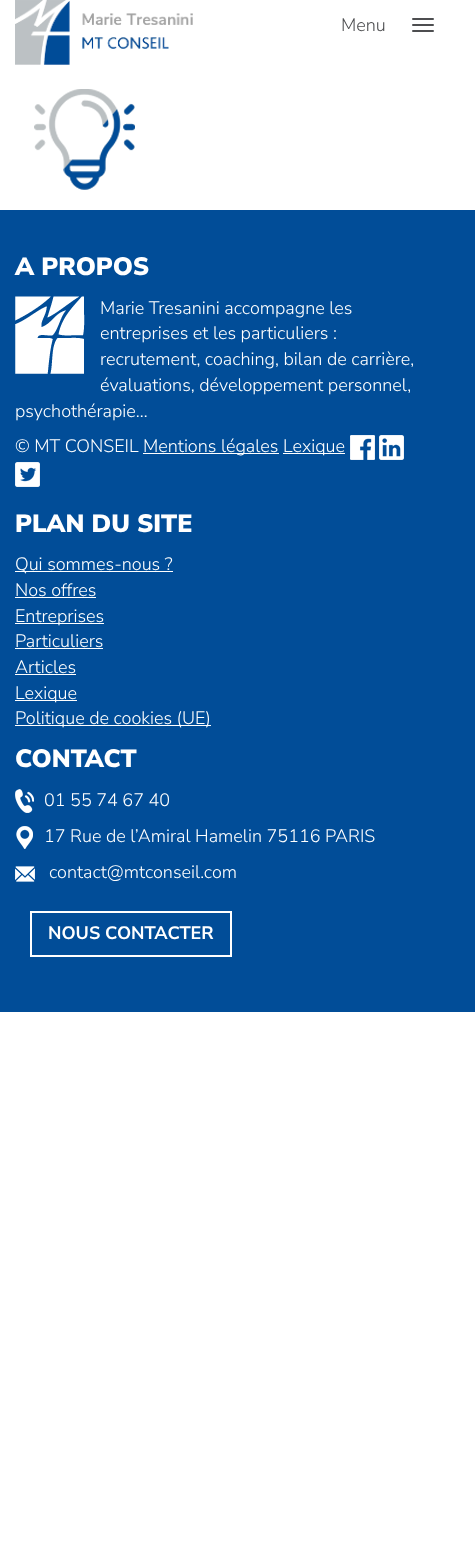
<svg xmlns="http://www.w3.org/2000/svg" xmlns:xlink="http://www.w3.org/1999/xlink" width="475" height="1553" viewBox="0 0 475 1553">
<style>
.cls-1{font:300 18px Nunito Sans;fill:#4d4e50}
.cls-2{font:900 25px Nunito Sans;fill:#ffffff}
.cls-3{font:300 18px Nunito Sans;fill:#ffffff}
.cls-4{font:bold 18px Nunito Sans;fill:#ffffff}
</style>
<rect width="100%" height="100%" fill="#ffffff"/>
<image xlink:href="image0.png" x="15" y="0" width="178" height="65"/>
<rect fill="#4d4e50" x="412" y="18" width="22" height="2" rx="1"/>
<rect fill="#4d4e50" x="412" y="24" width="22" height="2" rx="1"/>
<rect fill="#4d4e50" x="412" y="30" width="22" height="2" rx="1"/>
<image xlink:href="image1.png" x="34" y="89" width="101" height="101"/>
<rect fill="#014d98" x="0" y="210" width="475" height="802"/>
<image xlink:href="image2.png" x="15" y="296" width="70" height="78"/>
<rect fill="#ffffff" x="143" y="453" width="136" height="1"/>
<rect fill="#ffffff" x="283" y="453" width="62" height="1"/>
<image xlink:href="image3.png" x="350" y="435" width="25" height="25"/>
<image xlink:href="image4.png" x="379" y="435" width="25" height="25"/>
<image xlink:href="image5.png" x="15" y="462" width="25" height="25"/>
<rect fill="#ffffff" x="15" y="571" width="158" height="1"/>
<rect fill="#ffffff" x="15" y="597" width="81" height="1"/>
<rect fill="#ffffff" x="15" y="623" width="89" height="1"/>
<rect fill="#ffffff" x="15" y="648" width="88" height="1"/>
<rect fill="#ffffff" x="15" y="674" width="61" height="1"/>
<rect fill="#ffffff" x="15" y="700" width="62" height="1"/>
<rect fill="#ffffff" x="15" y="725" width="196" height="1"/>
<image xlink:href="image6.png" x="15" y="789" width="19" height="24"/>
<image xlink:href="image7.png" x="16" y="826" width="17" height="23"/>
<image xlink:href="image8.png" x="15" y="866" width="20" height="16"/>
<rect fill="none" stroke="#ffffff" stroke-width="2" x="31" y="912" width="200" height="44"/>
<text class="cls-1" x="341" y="31">Menu</text>
<text class="cls-2" x="15" y="275">A PROPOS</text>
<text class="cls-3"><tspan x="100" y="314">Marie Tresanini accompagne les</tspan><tspan x="100" y="339">entreprises et les particuliers :</tspan><tspan x="100" y="365">recrutement, coaching, bilan de carrière,</tspan><tspan x="100" y="391">évaluations, développement personnel,</tspan></text>
<text class="cls-3"><tspan x="15" y="417">psychothérapie…</tspan><tspan x="15" y="452">© MT CONSEIL</tspan></text>
<text class="cls-3" x="143" y="452">Mentions légales</text>
<text class="cls-3" x="283" y="452">Lexique</text>
<text class="cls-2" x="15" y="532">PLAN DU SITE</text>
<text class="cls-3"><tspan x="15" y="570">Qui sommes-nous ?</tspan><tspan x="15" y="596">Nos offres</tspan><tspan x="15" y="622">Entreprises</tspan><tspan x="15" y="647">Particuliers</tspan><tspan x="15" y="673">Articles</tspan><tspan x="15" y="699">Lexique</tspan><tspan x="15" y="724">Politique de cookies (UE)</tspan></text>
<text class="cls-2" x="15" y="767">CONTACT</text>
<text class="cls-3" x="44" y="806">01 55 74 67 40</text>
<text class="cls-3" x="44" y="842">17 Rue de l’Amiral Hamelin 75116 PARIS</text>
<text class="cls-3" x="49" y="878">contact@mtconseil.com</text>
<text class="cls-4" x="48" y="939">NOUS CONTACTER</text>
</svg>
